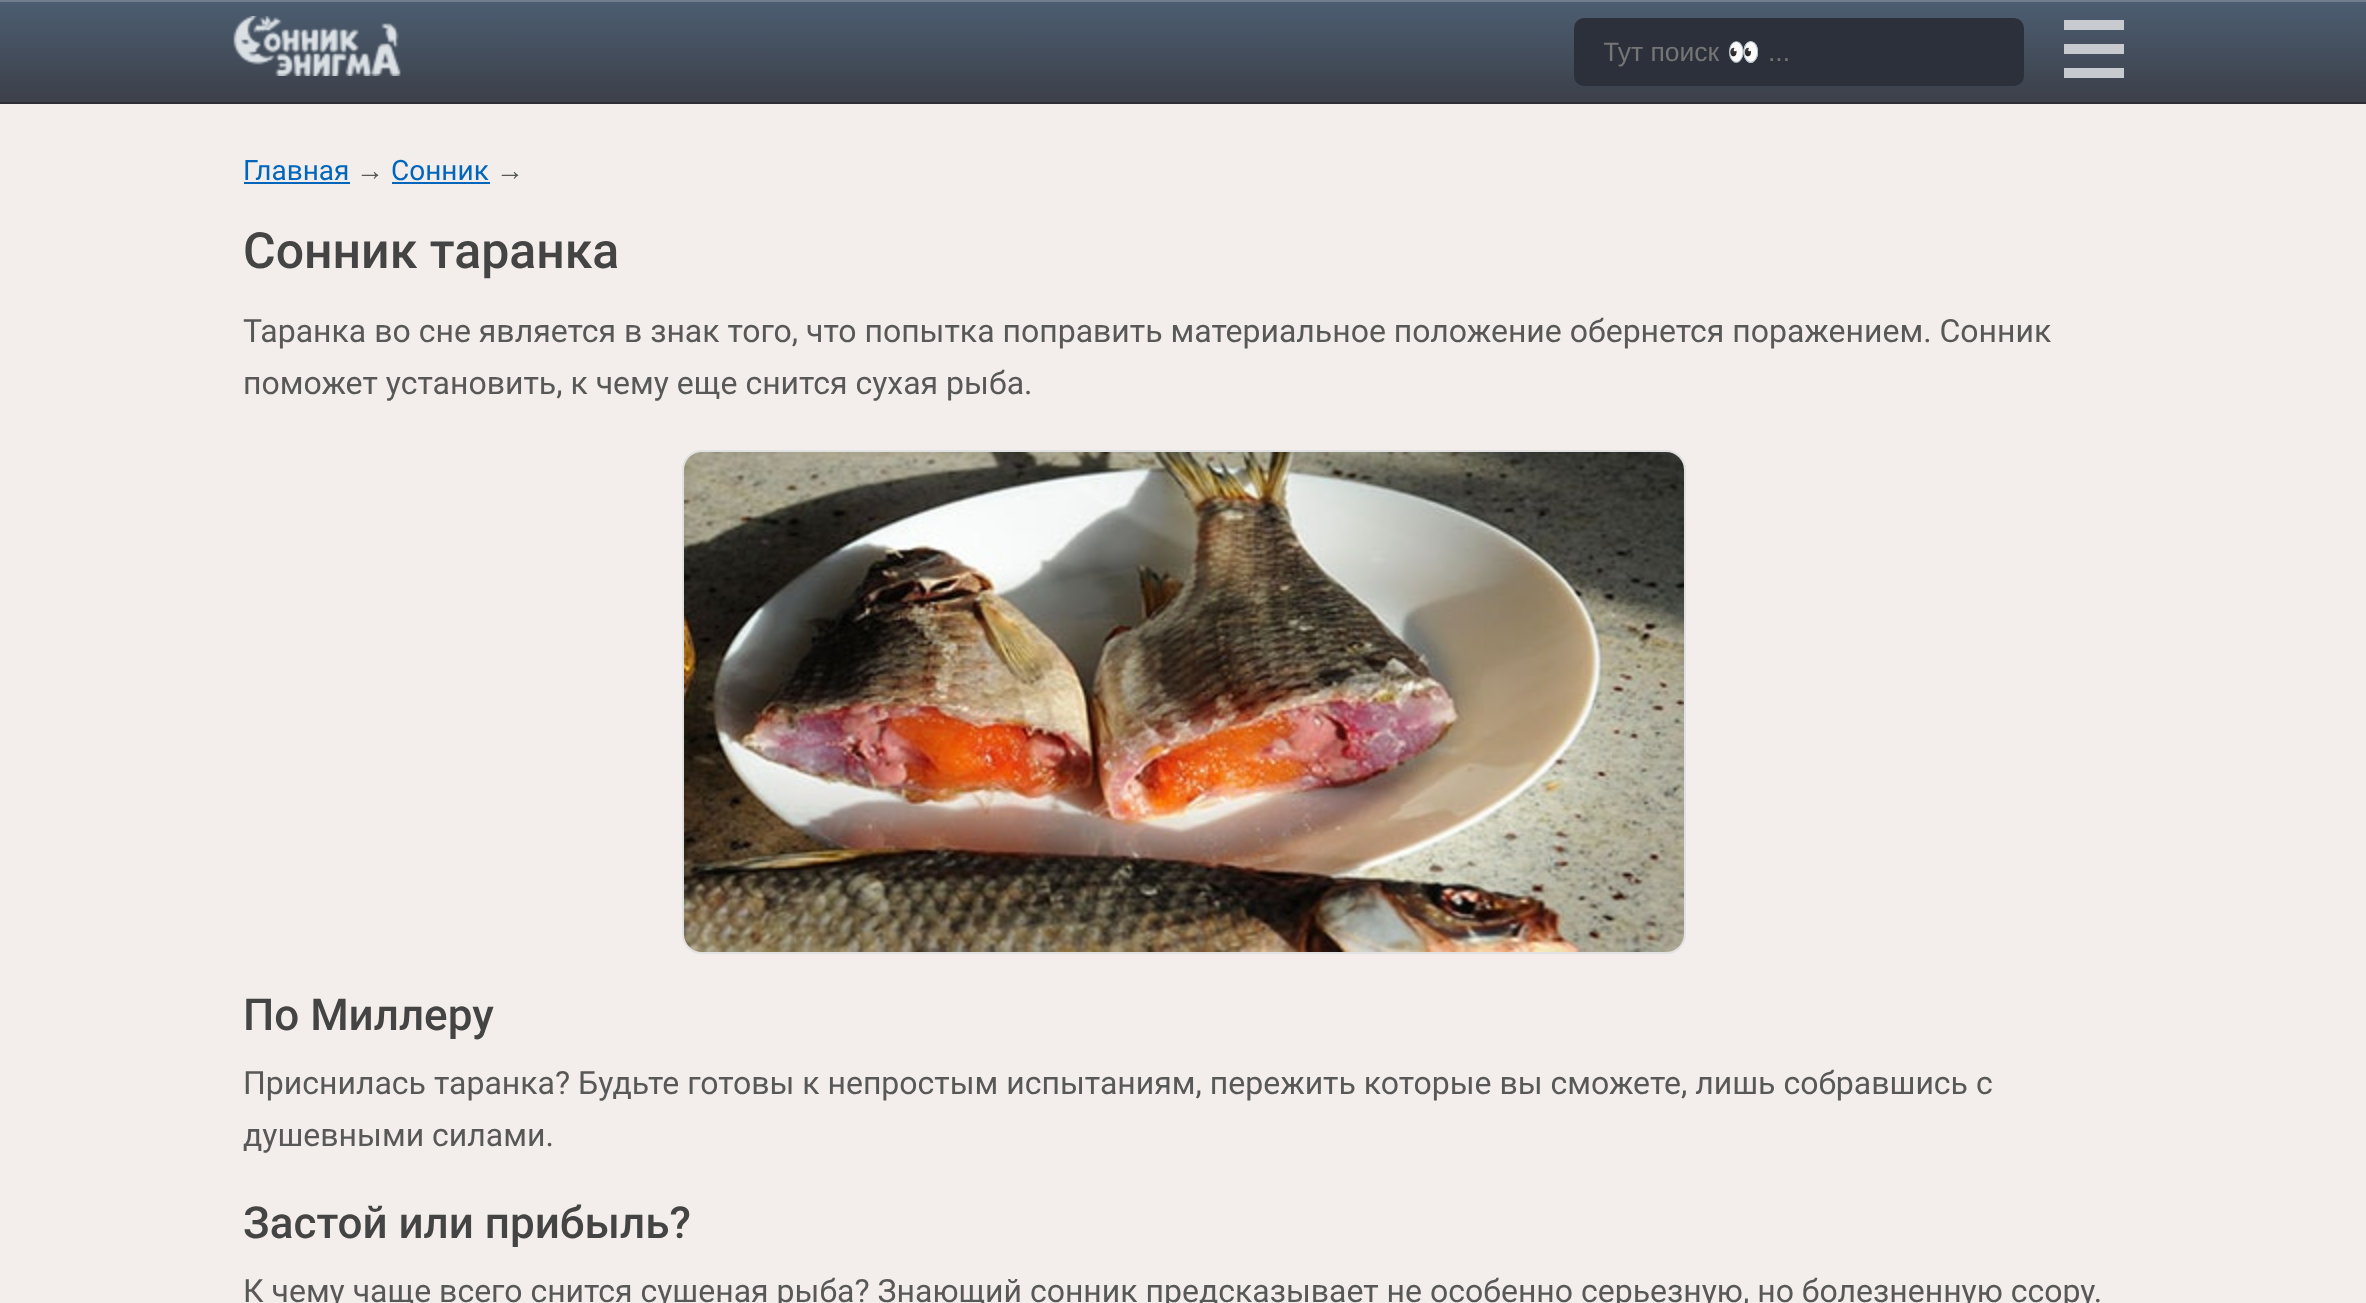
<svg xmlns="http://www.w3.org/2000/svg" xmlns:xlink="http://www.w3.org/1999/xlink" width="2366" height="1303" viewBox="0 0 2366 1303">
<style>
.cls-1{font:26.5px Liberation Sans;fill:#757575}
.cls-2{font:26.5px Noto Color Emoji;fill:#757575}
.cls-3{font:28px Roboto;fill:#0066bb}
.cls-4{font:28px Liberation Sans;fill:#585858}
.cls-5{font:500 50px Roboto;fill:#444444}
.cls-6{font:32px Roboto;fill:#585858}
.cls-7{font:500 44px Roboto;fill:#444444}
</style>
<defs>
<linearGradient id="g1" gradientUnits="userSpaceOnUse" x1="1183" y1="2" x2="1183" y2="102"><stop offset="0" stop-color="#4c5d71"/><stop offset="1" stop-color="#3c4049"/></linearGradient>
<clipPath id="clip1"><rect x="1604" y="38" width="400" height="30"/></clipPath>
</defs>
<rect width="100%" height="100%" fill="#f3eeeb"/>
<rect fill="url(#g1)" x="0" y="2" width="2366" height="100"/>
<rect fill="#717e8d" x="0" y="0" width="2366" height="2"/>
<rect fill="#2c2f36" x="0" y="102" width="2366" height="2"/>
<image xlink:href="image0.png" x="233" y="16" width="168" height="60"/>
<rect fill="#2b303b" x="1574" y="18" width="450" height="68" rx="10"/>
<rect fill="#c7cace" x="2064" y="44" width="60" height="10"/>
<rect fill="#c7cace" x="2064" y="20" width="60" height="10"/>
<rect fill="#c7cace" x="2064" y="68" width="60" height="10"/>
<rect fill="#0066bb" x="244" y="182" width="106" height="2"/>
<rect fill="#0066bb" x="392" y="182" width="98" height="2"/>
<rect fill="none" stroke="#e2e1e1" stroke-width="2" x="683" y="451" width="1002" height="502" rx="19"/>
<image xlink:href="image1.png" x="684" y="452" width="1000" height="500"/>
<g clip-path="url(#clip1)">
<text class="cls-1" x="1603" y="61">Тут поиск</text>
<text class="cls-2" x="1727" y="61">👀</text>
</g>
<text class="cls-1" x="1768" y="61">...</text>
<text class="cls-3" x="243" y="180">Главная</text>
<text class="cls-4" x="356" y="180">→</text>
<text class="cls-3" x="391" y="180">Сонник</text>
<text class="cls-4" x="496" y="180">→</text>
<text class="cls-5" x="243" y="268">Сонник таранка</text>
<text class="cls-6"><tspan x="243" y="342">Таранка во сне является в знак того, что попытка поправить материальное положение обернется поражением. Сонник</tspan><tspan x="243" y="394">поможет установить, к чему еще снится сухая рыба.</tspan></text>
<text class="cls-7" x="243" y="1030">По Миллеру</text>
<text class="cls-6"><tspan x="243" y="1094">Приснилась таранка? Будьте готовы к непростым испытаниям, пережить которые вы сможете, лишь собравшись с</tspan><tspan x="243" y="1146">душевными силами.</tspan></text>
<text class="cls-7" x="243" y="1238">Застой или прибыль?</text>
<text class="cls-6" x="243" y="1302">К чему чаще всего снится сушеная рыба? Знающий сонник предсказывает не особенно серьезную, но болезненную ссору.</text>
</svg>
